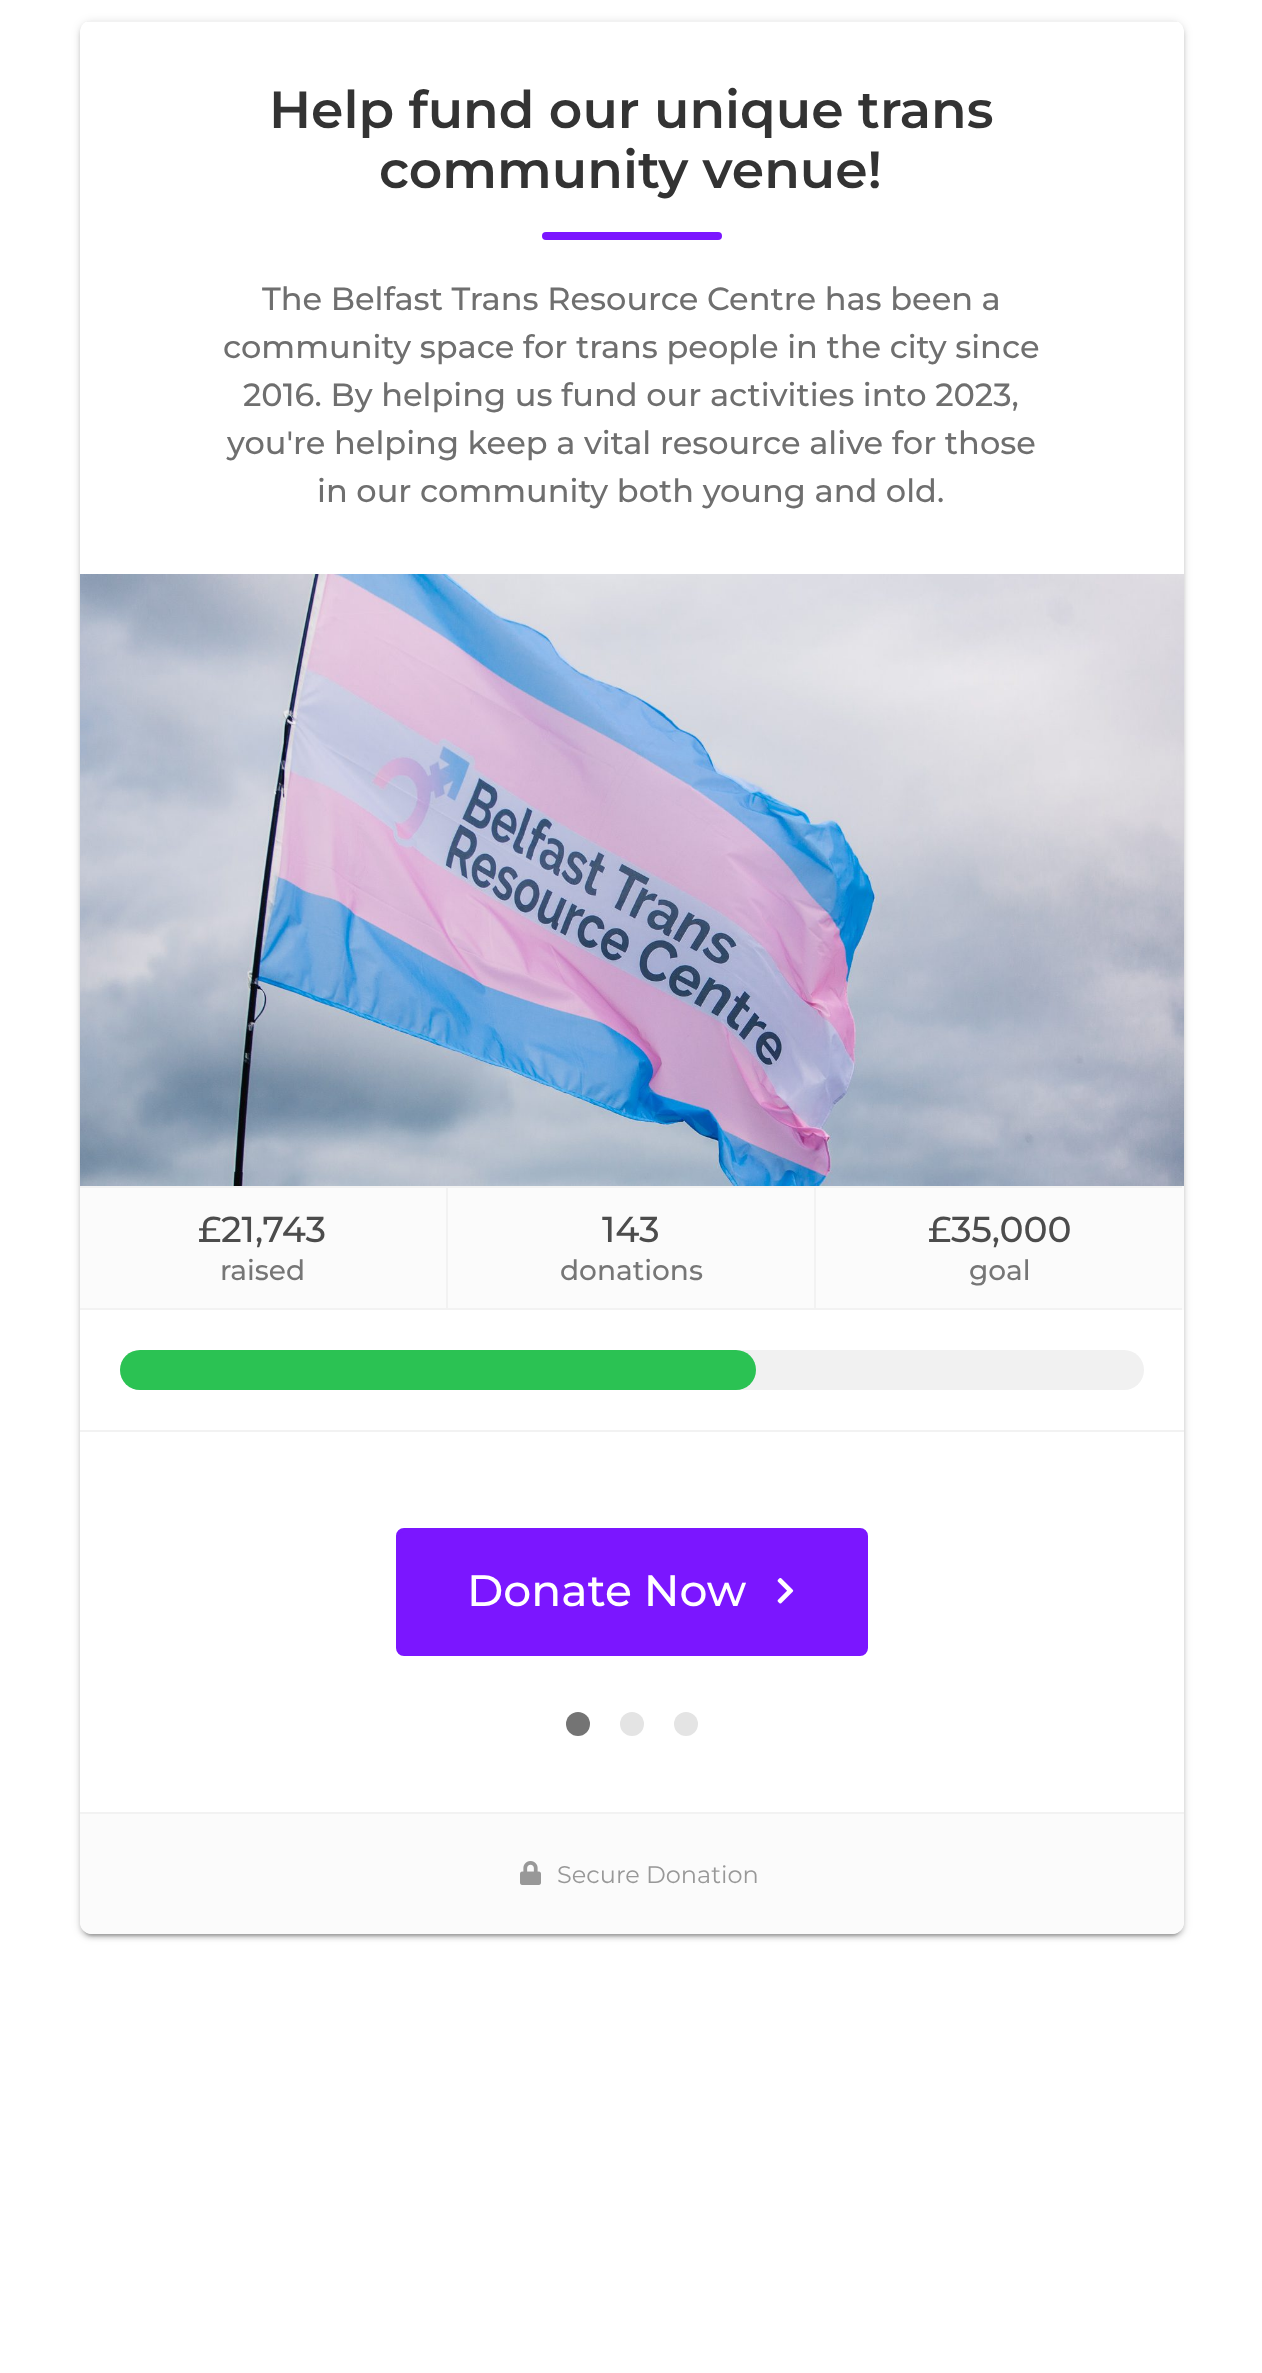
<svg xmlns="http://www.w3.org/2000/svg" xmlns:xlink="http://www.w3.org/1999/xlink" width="1262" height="2373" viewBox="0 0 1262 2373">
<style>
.cls-1{font:600 52px Montserrat;fill:#333333}
.cls-2{font:500 32px Montserrat;fill:#6f6f6f}
.cls-3{font:500 36px Montserrat;fill:#4c4c4c}
.cls-4{font:500 28px Montserrat;fill:#767676}
.cls-5{font:500 44px Montserrat;fill:#ffffff}
.cls-6{font:24px Montserrat;fill:#989898}
</style>
<defs>
<clipPath id="clip1"><rect x="80" y="20" width="1104" height="1914" rx="12"/></clipPath>
</defs>
<rect width="100%" height="100%" fill="#ffffff"/>
<rect fill="#000000" fill-opacity="0.12" filter="blur(5px)" x="80" y="22" width="1104" height="1914" rx="12"/>
<rect fill="#000000" fill-opacity="0.2" filter="blur(1px)" x="84" y="30" width="1096" height="1906" rx="8"/>
<rect fill="#000000" fill-opacity="0.14" filter="blur(2px)" x="80" y="24" width="1104" height="1914" rx="12"/>
<rect fill="#ffffff" x="80" y="20" width="1104" height="1914" rx="12"/>
<g clip-path="url(#clip1)">
<rect fill="#f2f2f2" x="80" y="20" width="1104" height="2"/>
</g>
<rect fill="#7b16ff" x="542" y="232" width="180" height="8" rx="4"/>
<image xlink:href="image0.png" x="80" y="574" width="1104" height="612"/>
<rect fill="#fbfbfb" x="80" y="1186" width="1104" height="124"/>
<rect fill="#f2f2f2" x="80" y="1186" width="1102" height="2"/>
<rect fill="#f2f2f2" x="446" y="1186" width="2" height="124"/>
<rect fill="#f2f2f2" x="80" y="1308" width="1102" height="2"/>
<rect fill="#f2f2f2" x="814" y="1186" width="2" height="124"/>
<rect fill="#f2f2f2" x="80" y="1430" width="1104" height="2"/>
<rect fill="#f1f1f1" x="120" y="1350" width="1024" height="40" rx="20"/>
<rect fill="#2bc253" x="120" y="1350" width="636" height="40" rx="20"/>
<rect fill="#7b16ff" stroke="#7b16ff" stroke-width="4" x="398" y="1530" width="468" height="124" rx="6"/>
<image xlink:href="image1.png" x="777" y="1578" width="17" height="26"/>
<circle fill="#747474" cx="578" cy="1724" r="12"/>
<circle fill="#e4e4e4" cx="632" cy="1724" r="12"/>
<circle fill="#e4e4e4" cx="686" cy="1724" r="12"/>
<path fill="#fbfbfb" d="M80 1812H1184V1922C1184 1928.5 1178.5 1934 1172 1934H92C85.5 1934 80 1928.5 80 1922Z"/>
<rect fill="#f2f2f2" x="80" y="1812" width="1104" height="2"/>
<image xlink:href="image2.png" x="520" y="1861" width="21" height="24"/>
<text class="cls-1" x="269" y="128">Help fund our unique trans</text>
<text class="cls-1" x="379" y="188">community venue!</text>
<text class="cls-2" x="262" y="310">The Belfast Trans Resource Centre has been a</text>
<text class="cls-2" x="223" y="358">community space for trans people in the city since</text>
<text class="cls-2" x="243" y="406">2016. By helping us fund our activities into 2023,</text>
<text class="cls-2" x="227" y="454">you're helping keep a vital resource alive for those</text>
<text class="cls-2" x="317" y="502">in our community both young and old.</text>
<text class="cls-3" x="198" y="1242">£21,743</text>
<text class="cls-4" x="220" y="1280">raised</text>
<text class="cls-3" x="602" y="1242">143</text>
<text class="cls-4" x="560" y="1280">donations</text>
<text class="cls-3" x="928" y="1242">£35,000</text>
<text class="cls-4" x="969" y="1280">goal</text>
<text class="cls-5" x="467" y="1606">Donate Now</text>
<text class="cls-6" x="557" y="1883">Secure Donation</text>
</svg>
